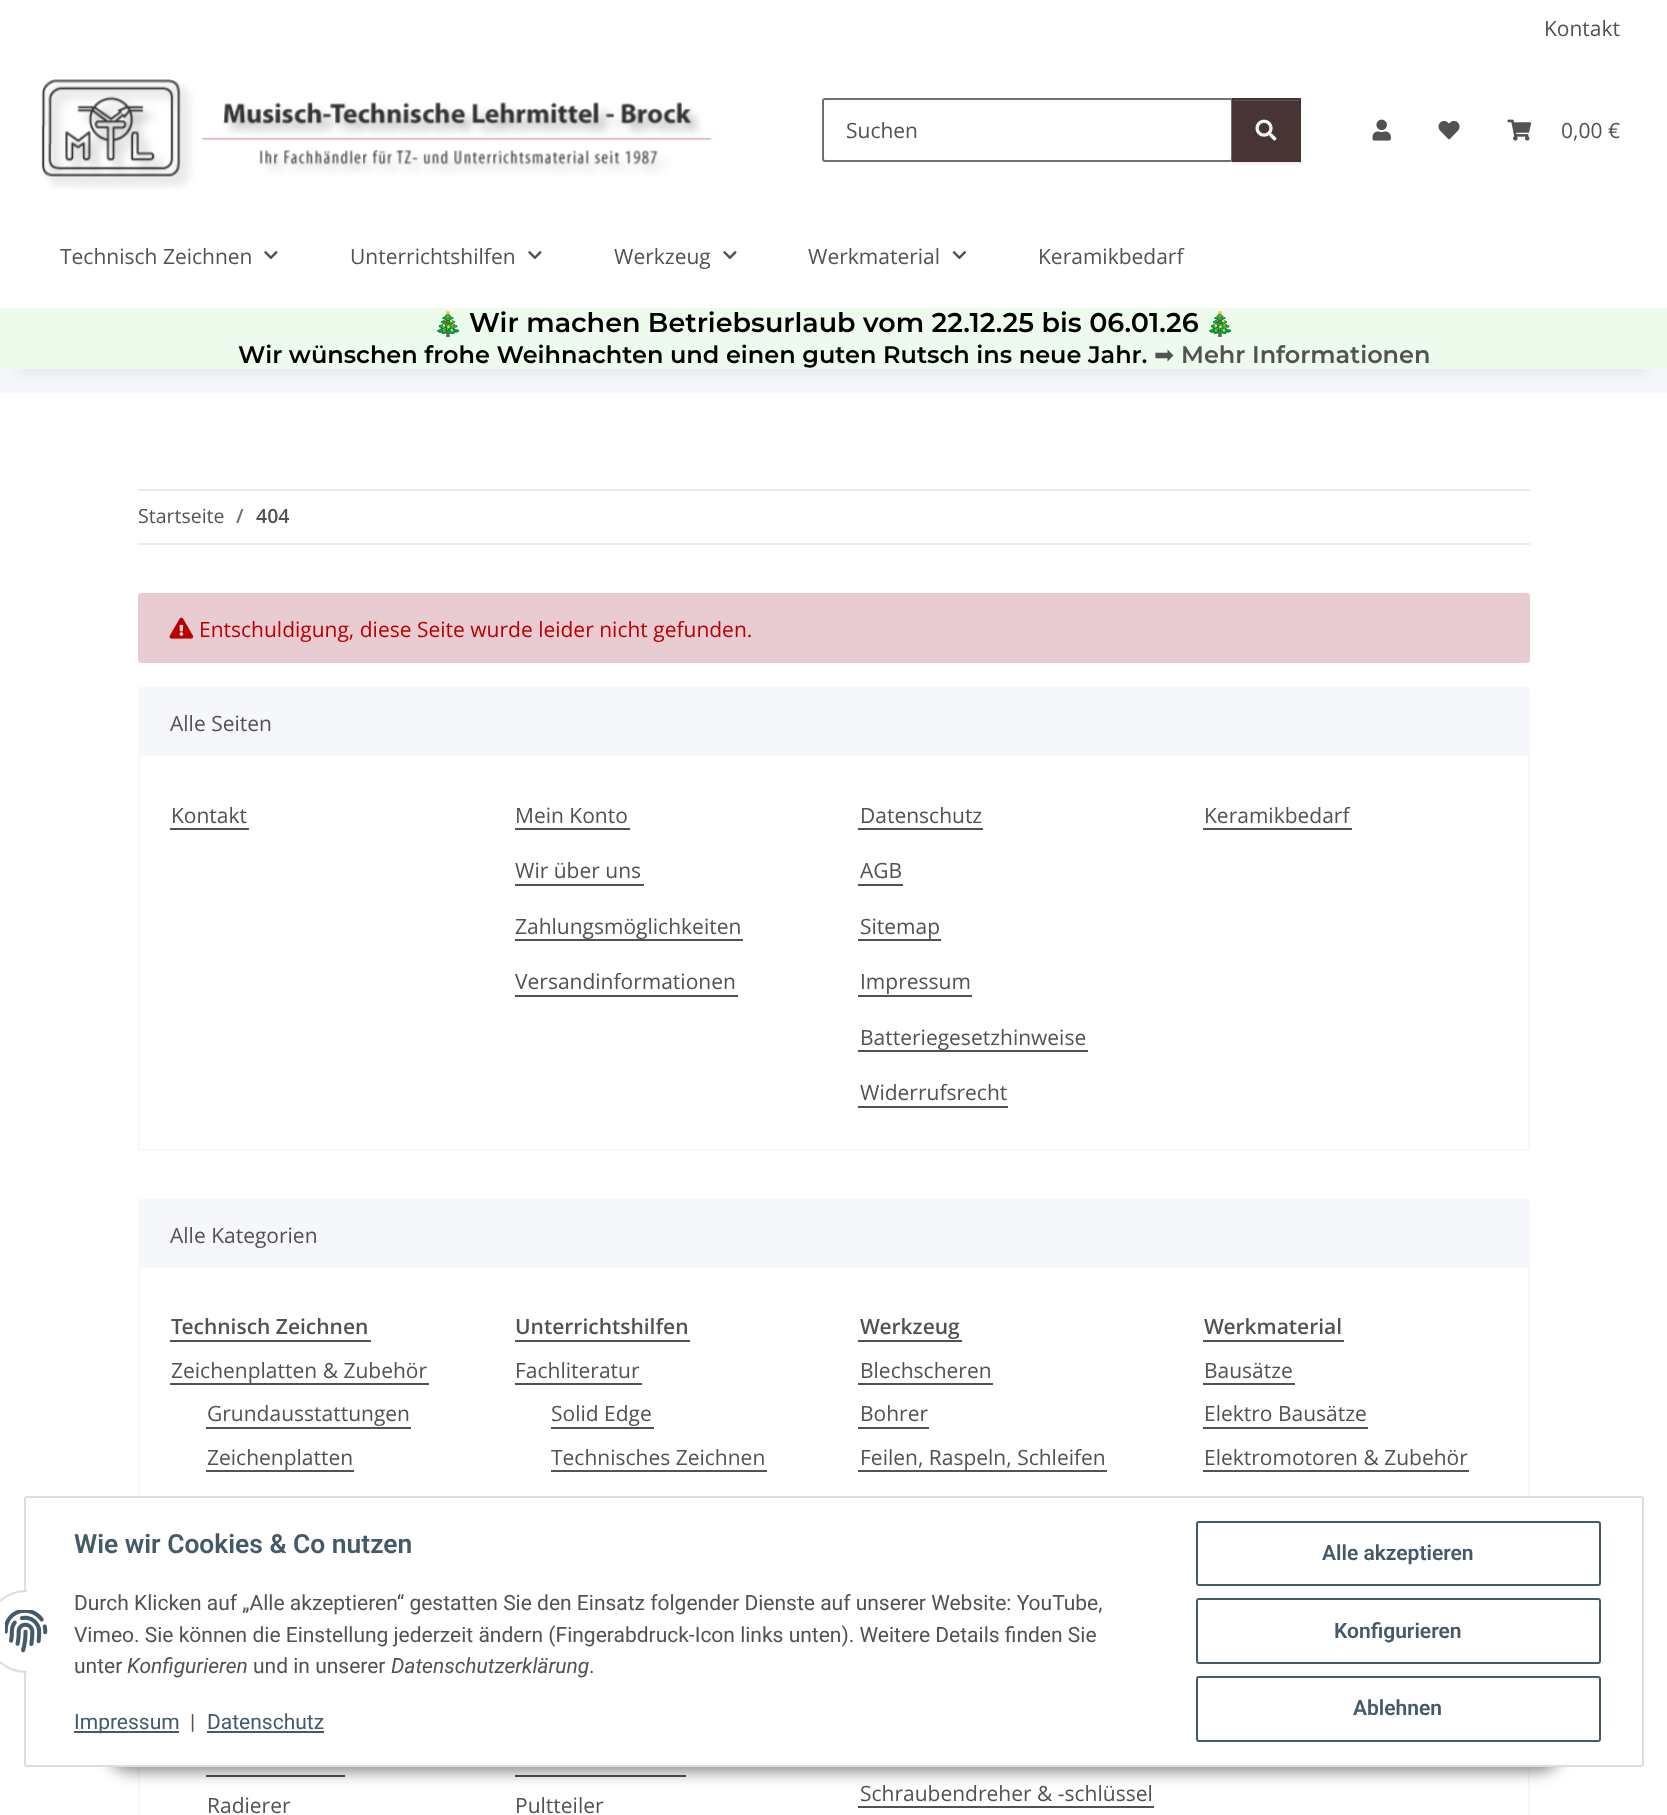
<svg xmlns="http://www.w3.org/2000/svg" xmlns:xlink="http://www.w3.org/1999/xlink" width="1667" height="1815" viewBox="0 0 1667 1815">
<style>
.cls-1{font:21px Open Sans;fill:#525252}
.cls-2{font:24px Noto Color Emoji;fill:#000000}
.cls-3{font:600 27px Montserrat;fill:#000000}
.cls-4{font:600 24px Montserrat;fill:#000000}
.cls-5{font:24px DejaVu Sans;fill:#525252}
.cls-6{font:600 24px Montserrat;fill:#525252}
.cls-7{font:19.5px Open Sans;fill:#525252}
.cls-8{font:600 19.5px Open Sans;fill:#707070}
.cls-9{font:600 19.5px Open Sans;fill:#525252}
.cls-10{font:21px Open Sans;fill:#b90000}
.cls-11{font:600 21px Open Sans;fill:#525252}
.cls-12{font:600 26.4px Roboto;fill:#435a6b}
.cls-13{font:21px Roboto;fill:#525252}
.cls-14{font:italic 21px Roboto;fill:#525252}
.cls-15{font:21px Roboto;fill:#435a6b}
.cls-16{font:600 21px Roboto;fill:#435a6b}
</style>
<rect width="100%" height="100%" fill="#f5f7fa"/>
<rect fill="#ffffff" x="0" y="393" width="1667" height="1422"/>
<rect fill="#000000" fill-opacity="0.06" filter="blur(7px)" x="18" y="42" width="1632" height="333"/>
<rect fill="#ffffff" x="0" y="0" width="1667" height="308"/>
<image xlink:href="image0.png" x="41" y="79" width="671" height="110"/>
<rect fill="none" stroke="#707070" stroke-width="2" x="823" y="99" width="409" height="62" rx="2"/>
<rect fill="#000000" fill-opacity="0.07" filter="blur(1px)" x="1232" y="99" width="69" height="65"/>
<rect fill="#473535" x="1234" y="101" width="65" height="59"/>
<rect fill="#635353" x="1233" y="100" width="66" height="1"/>
<rect fill="none" stroke="#473535" stroke-width="2" x="1233" y="99" width="67" height="62"/>
<image xlink:href="image1.png" x="1255" y="119" width="22" height="22"/>
<image xlink:href="image2.png" x="1372" y="119" width="19" height="22"/>
<image xlink:href="image3.png" x="1438" y="120" width="22" height="20"/>
<image xlink:href="image4.png" x="1507" y="119" width="25" height="22"/>
<image xlink:href="image5.png" x="264" y="251" width="14" height="9"/>
<image xlink:href="image5.png" x="528" y="251" width="14" height="9"/>
<image xlink:href="image5.png" x="723" y="251" width="14" height="9"/>
<image xlink:href="image6.png" x="952" y="251" width="15" height="9"/>
<rect fill="#edfbec" x="0" y="308" width="1667" height="61"/>
<rect fill="#ebebeb" x="138" y="489" width="1392" height="2"/>
<rect fill="#ebebeb" x="138" y="543" width="1392" height="2"/>
<rect fill="#e8ccd2" stroke="#e8ccd2" stroke-width="2" x="139" y="594" width="1390" height="68" rx="2"/>
<image xlink:href="image7.png" x="169" y="617" width="25" height="22"/>
<rect fill="none" stroke="#f5f7fa" stroke-width="2" x="139" y="688" width="1390" height="462" rx="2"/>
<path fill="#f5f7fa" d="M141.5 689H1527.5C1528.5 689 1529 689.5 1529 690.5V756H140V690.5C140 689.5 140.5 689 141.5 689Z"/>
<rect fill="#525252" x="170" y="828" width="79" height="2"/>
<rect fill="#525252" x="515" y="828" width="115" height="2"/>
<rect fill="#525252" x="515" y="884" width="129" height="2"/>
<rect fill="#525252" x="515" y="939" width="228" height="2"/>
<rect fill="#525252" x="515" y="995" width="223" height="2"/>
<rect fill="#525252" x="858" y="828" width="125" height="2"/>
<rect fill="#525252" x="858" y="884" width="45" height="2"/>
<rect fill="#525252" x="858" y="939" width="83" height="2"/>
<rect fill="#525252" x="858" y="995" width="114" height="2"/>
<rect fill="#525252" x="858" y="1050" width="230" height="2"/>
<rect fill="#525252" x="858" y="1106" width="150" height="2"/>
<rect fill="#525252" x="1203" y="828" width="149" height="2"/>
<rect fill="none" stroke="#f5f7fa" stroke-width="2" x="139" y="1200" width="1390" height="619" rx="2"/>
<path fill="#f5f7fa" d="M141.5 1200H1527.5C1528.5 1200 1529 1200.5 1529 1201.5V1268H140V1201.5C140 1200.5 140.5 1200 141.5 1200Z"/>
<rect fill="#525252" x="170" y="1340" width="201" height="2"/>
<rect fill="#525252" x="170" y="1383" width="259" height="2"/>
<rect fill="#525252" x="206" y="1427" width="205" height="2"/>
<rect fill="#525252" x="206" y="1470" width="148" height="2"/>
<rect fill="#525252" x="206" y="1775" width="139" height="2"/>
<rect fill="#525252" x="515" y="1340" width="175" height="2"/>
<rect fill="#525252" x="515" y="1383" width="127" height="2"/>
<rect fill="#525252" x="551" y="1427" width="103" height="2"/>
<rect fill="#525252" x="551" y="1470" width="216" height="2"/>
<rect fill="#525252" x="515" y="1775" width="171" height="2"/>
<rect fill="#525252" x="858" y="1340" width="104" height="2"/>
<rect fill="#525252" x="858" y="1383" width="135" height="2"/>
<rect fill="#525252" x="858" y="1427" width="71" height="2"/>
<rect fill="#525252" x="858" y="1470" width="249" height="2"/>
<rect fill="#525252" x="858" y="1806" width="296" height="2"/>
<rect fill="#525252" x="1203" y="1340" width="141" height="2"/>
<rect fill="#525252" x="1203" y="1383" width="92" height="2"/>
<rect fill="#525252" x="1203" y="1427" width="165" height="2"/>
<rect fill="#525252" x="1203" y="1470" width="266" height="2"/>
<rect fill="#000000" fill-opacity="0.45" filter="blur(7.5px)" x="107" y="1724" width="1455" height="48" rx="24"/>
<rect fill="#ffffff" stroke="#dddddd" stroke-width="2" x="25" y="1497" width="1618" height="269" rx="2"/>
<circle fill="#ffffff" stroke="#dddddd" stroke-width="2" cx="26.5" cy="1631.5" r="40.5"/>
<rect fill="#ffffff" x="27" y="1590" width="41" height="83"/>
<image xlink:href="image8.png" x="5" y="1610" width="43" height="43"/>
<rect fill="#435a6b" x="74" y="1731" width="105" height="2"/>
<rect fill="#435a6b" x="207" y="1731" width="117" height="2"/>
<rect fill="none" stroke="#435a6b" stroke-width="2" x="1197" y="1522" width="403" height="63" rx="2"/>
<rect fill="none" stroke="#435a6b" stroke-width="2" x="1197" y="1599" width="403" height="64" rx="2"/>
<rect fill="none" stroke="#435a6b" stroke-width="2" x="1197" y="1677" width="403" height="64" rx="2"/>
<text class="cls-1" x="1544" y="36">Kontakt</text>
<text class="cls-1" x="846" y="138">Suchen</text>
<text class="cls-1" x="1561" y="138">0,00 €</text>
<text class="cls-1" x="60" y="264">Technisch Zeichnen</text>
<text class="cls-1" x="350" y="264">Unterrichtshilfen</text>
<text class="cls-1" x="614" y="264">Werkzeug</text>
<text class="cls-1" x="808" y="264">Werkmaterial</text>
<text class="cls-1" x="1038" y="264">Keramikbedarf</text>
<text class="cls-2" x="433" y="332">🎄</text>
<text class="cls-3" x="469" y="332">Wir machen Betriebsurlaub vom 22.12.25 bis 06.01.26</text>
<text class="cls-2" x="1205" y="332">🎄</text>
<text class="cls-4" x="238" y="363">Wir wünschen frohe Weihnachten und einen guten Rutsch ins neue Jahr.</text>
<text class="cls-5" x="1154" y="363">➡</text>
<text class="cls-6" x="1181" y="363">Mehr Informationen</text>
<text class="cls-7" x="138" y="523">Startseite</text>
<text class="cls-8" x="236" y="523">/</text>
<text class="cls-9" x="256" y="523">404</text>
<text class="cls-10" x="199" y="637">Entschuldigung, diese Seite wurde leider nicht gefunden.</text>
<text class="cls-1" x="170" y="731">Alle Seiten</text>
<text class="cls-1" x="171" y="823">Kontakt</text>
<text class="cls-1" x="515" y="823">Mein Konto</text>
<text class="cls-1" x="515" y="878">Wir über uns</text>
<text class="cls-1" x="515" y="934">Zahlungsmöglichkeiten</text>
<text class="cls-1" x="515" y="989">Versandinformationen</text>
<text class="cls-1" x="860" y="823">Datenschutz</text>
<text class="cls-1" x="860" y="878">AGB</text>
<text class="cls-1" x="860" y="934">Sitemap</text>
<text class="cls-1" x="860" y="989">Impressum</text>
<text class="cls-1" x="860" y="1045">Batteriegesetzhinweise</text>
<text class="cls-1" x="860" y="1100">Widerrufsrecht</text>
<text class="cls-1" x="1204" y="823">Keramikbedarf</text>
<text class="cls-1" x="170" y="1243">Alle Kategorien</text>
<text class="cls-11" x="171" y="1334">Technisch Zeichnen</text>
<text class="cls-1" x="171" y="1378">Zeichenplatten &amp; Zubehör</text>
<text class="cls-1" x="207" y="1421">Grundausstattungen</text>
<text class="cls-1" x="207" y="1465">Zeichenplatten</text>
<text class="cls-1" x="207" y="1813">Radierer</text>
<text class="cls-11" x="515" y="1334">Unterrichtshilfen</text>
<text class="cls-1" x="515" y="1378">Fachliteratur</text>
<text class="cls-1" x="551" y="1421">Solid Edge</text>
<text class="cls-1" x="551" y="1465">Technisches Zeichnen</text>
<text class="cls-1" x="515" y="1813">Pultteiler</text>
<text class="cls-11" x="860" y="1334">Werkzeug</text>
<text class="cls-1" x="860" y="1378">Blechscheren</text>
<text class="cls-1" x="860" y="1421">Bohrer</text>
<text class="cls-1" x="860" y="1465">Feilen, Raspeln, Schleifen</text>
<text class="cls-1" x="860" y="1801">Schraubendreher &amp; -schlüssel</text>
<text class="cls-11" x="1204" y="1334">Werkmaterial</text>
<text class="cls-1" x="1204" y="1378">Bausätze</text>
<text class="cls-1" x="1204" y="1421">Elektro Bausätze</text>
<text class="cls-1" x="1204" y="1465">Elektromotoren &amp; Zubehör</text>
<text class="cls-12" x="74" y="1553">Wie wir Cookies &amp; Co nutzen</text>
<text class="cls-13"><tspan x="74" y="1610">Durch Klicken auf „Alle akzeptieren“ gestatten Sie den Einsatz folgender Dienste auf unserer Website: YouTube,</tspan><tspan x="74" y="1642">Vimeo. Sie können die Einstellung jederzeit ändern (Fingerabdruck-Icon links unten). Weitere Details finden Sie</tspan><tspan x="74" y="1673">unter</tspan></text>
<text class="cls-14" x="127" y="1673">Konfigurieren</text>
<text class="cls-13" x="253" y="1673">und in unserer</text>
<text class="cls-14" x="391" y="1673">Datenschutzerklärung</text>
<text class="cls-13" x="589" y="1673">.</text>
<text class="cls-15" x="74" y="1729">Impressum</text>
<text class="cls-13" x="190" y="1729">|</text>
<text class="cls-15" x="207" y="1729">Datenschutz</text>
<text class="cls-16" x="1322" y="1560">Alle akzeptieren</text>
<text class="cls-16" x="1334" y="1638">Konfigurieren</text>
<text class="cls-16" x="1353" y="1715">Ablehnen</text>
</svg>
